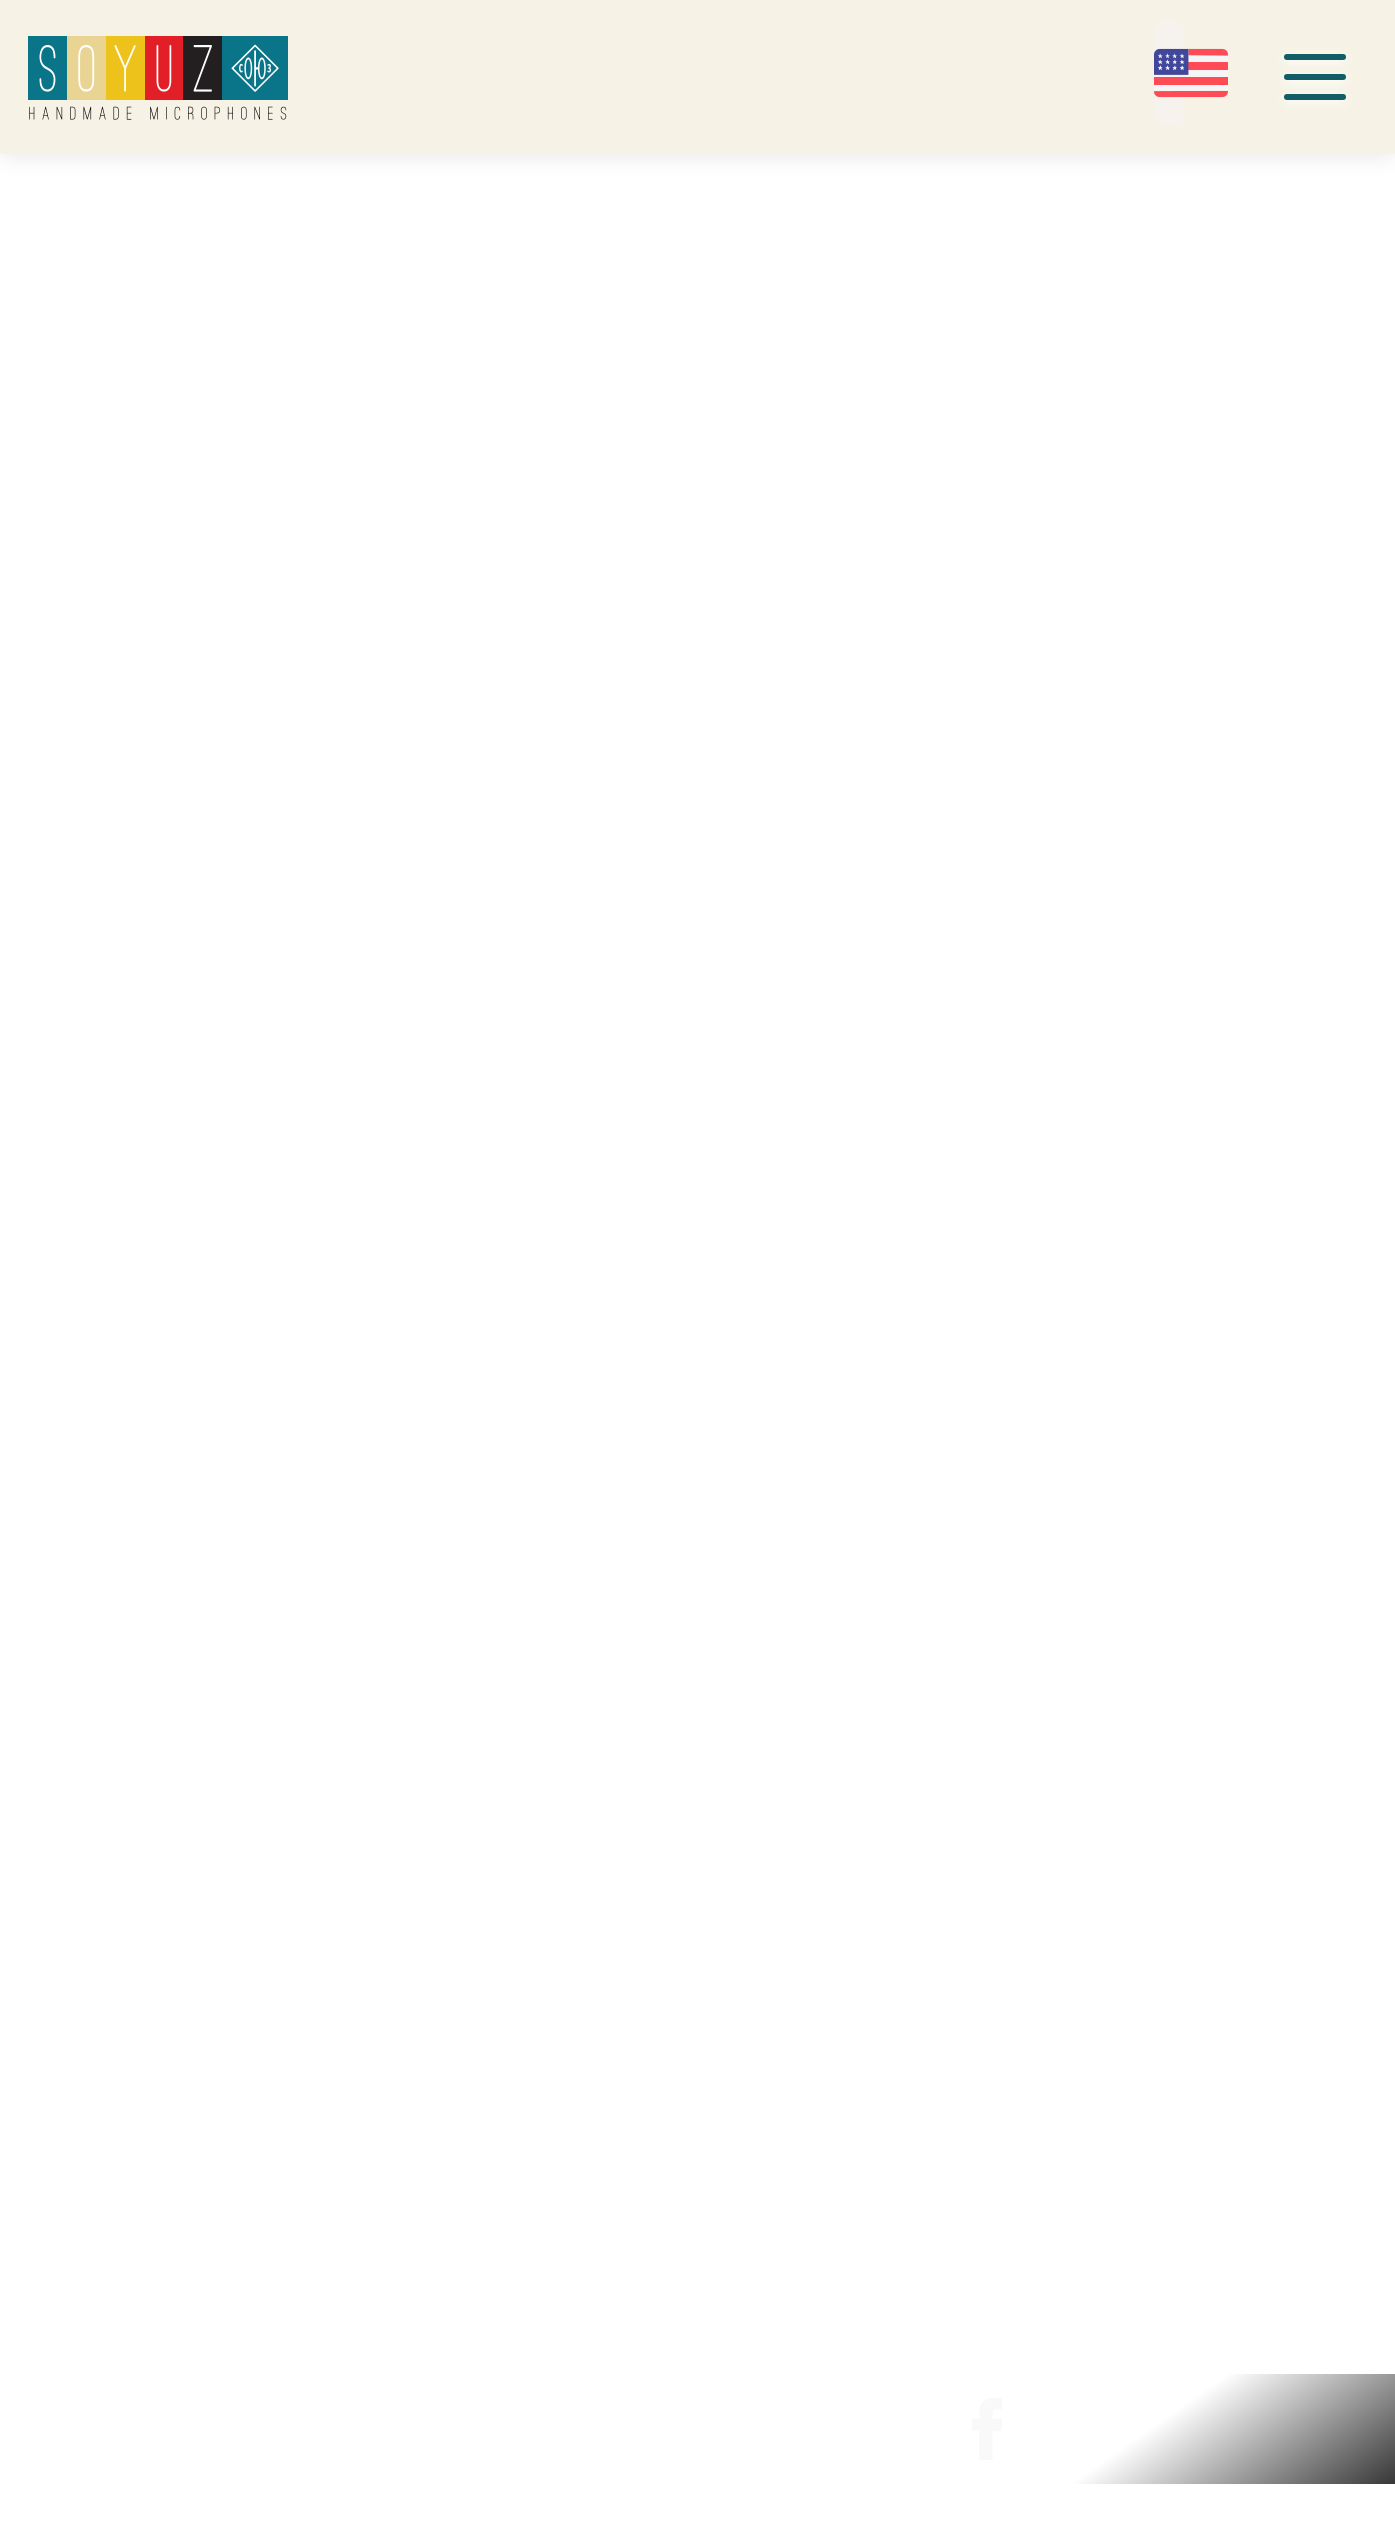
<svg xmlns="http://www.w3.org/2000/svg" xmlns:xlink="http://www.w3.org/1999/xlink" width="1395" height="2537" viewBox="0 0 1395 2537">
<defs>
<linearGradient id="g1" gradientUnits="userSpaceOnUse" x1="953" y1="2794" x2="443" y2="2064"><stop offset="0" stop-color="#363636"/><stop offset="0.21" stop-color="#ffffff"/></linearGradient>
</defs>
<rect width="100%" height="100%" fill="#ffffff"/>
<rect fill="#000000" fill-opacity="0.08" filter="blur(10px)" x="0" y="4" width="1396" height="154"/>
<rect fill="#f6f3e6" x="0" y="0" width="1395" height="154"/>
<image xlink:href="image0.png" x="28" y="36" width="260" height="84"/>
<rect fill="#f6f2ed" x="1154" y="20" width="30" height="106" rx="12"/>
<image xlink:href="image1.png" x="1154" y="48" width="74" height="50"/>
<rect fill="#ffffff" filter="blur(5px)" x="1284" y="56" width="62" height="6" rx="3"/>
<rect fill="#115e67" x="1284" y="54" width="62" height="6" rx="3"/>
<rect fill="#ffffff" filter="blur(5px)" x="1284" y="76" width="62" height="6" rx="3"/>
<rect fill="#115e67" x="1284" y="74" width="62" height="6" rx="3"/>
<rect fill="#ffffff" filter="blur(5px)" x="1284" y="96" width="62" height="6" rx="3"/>
<rect fill="#115e67" x="1284" y="94" width="62" height="6" rx="3"/>
<rect fill="url(#g1)" x="1075" y="2374" width="320" height="110"/>
<image xlink:href="image2.png" x="972" y="2398" width="30" height="62"/>
</svg>
